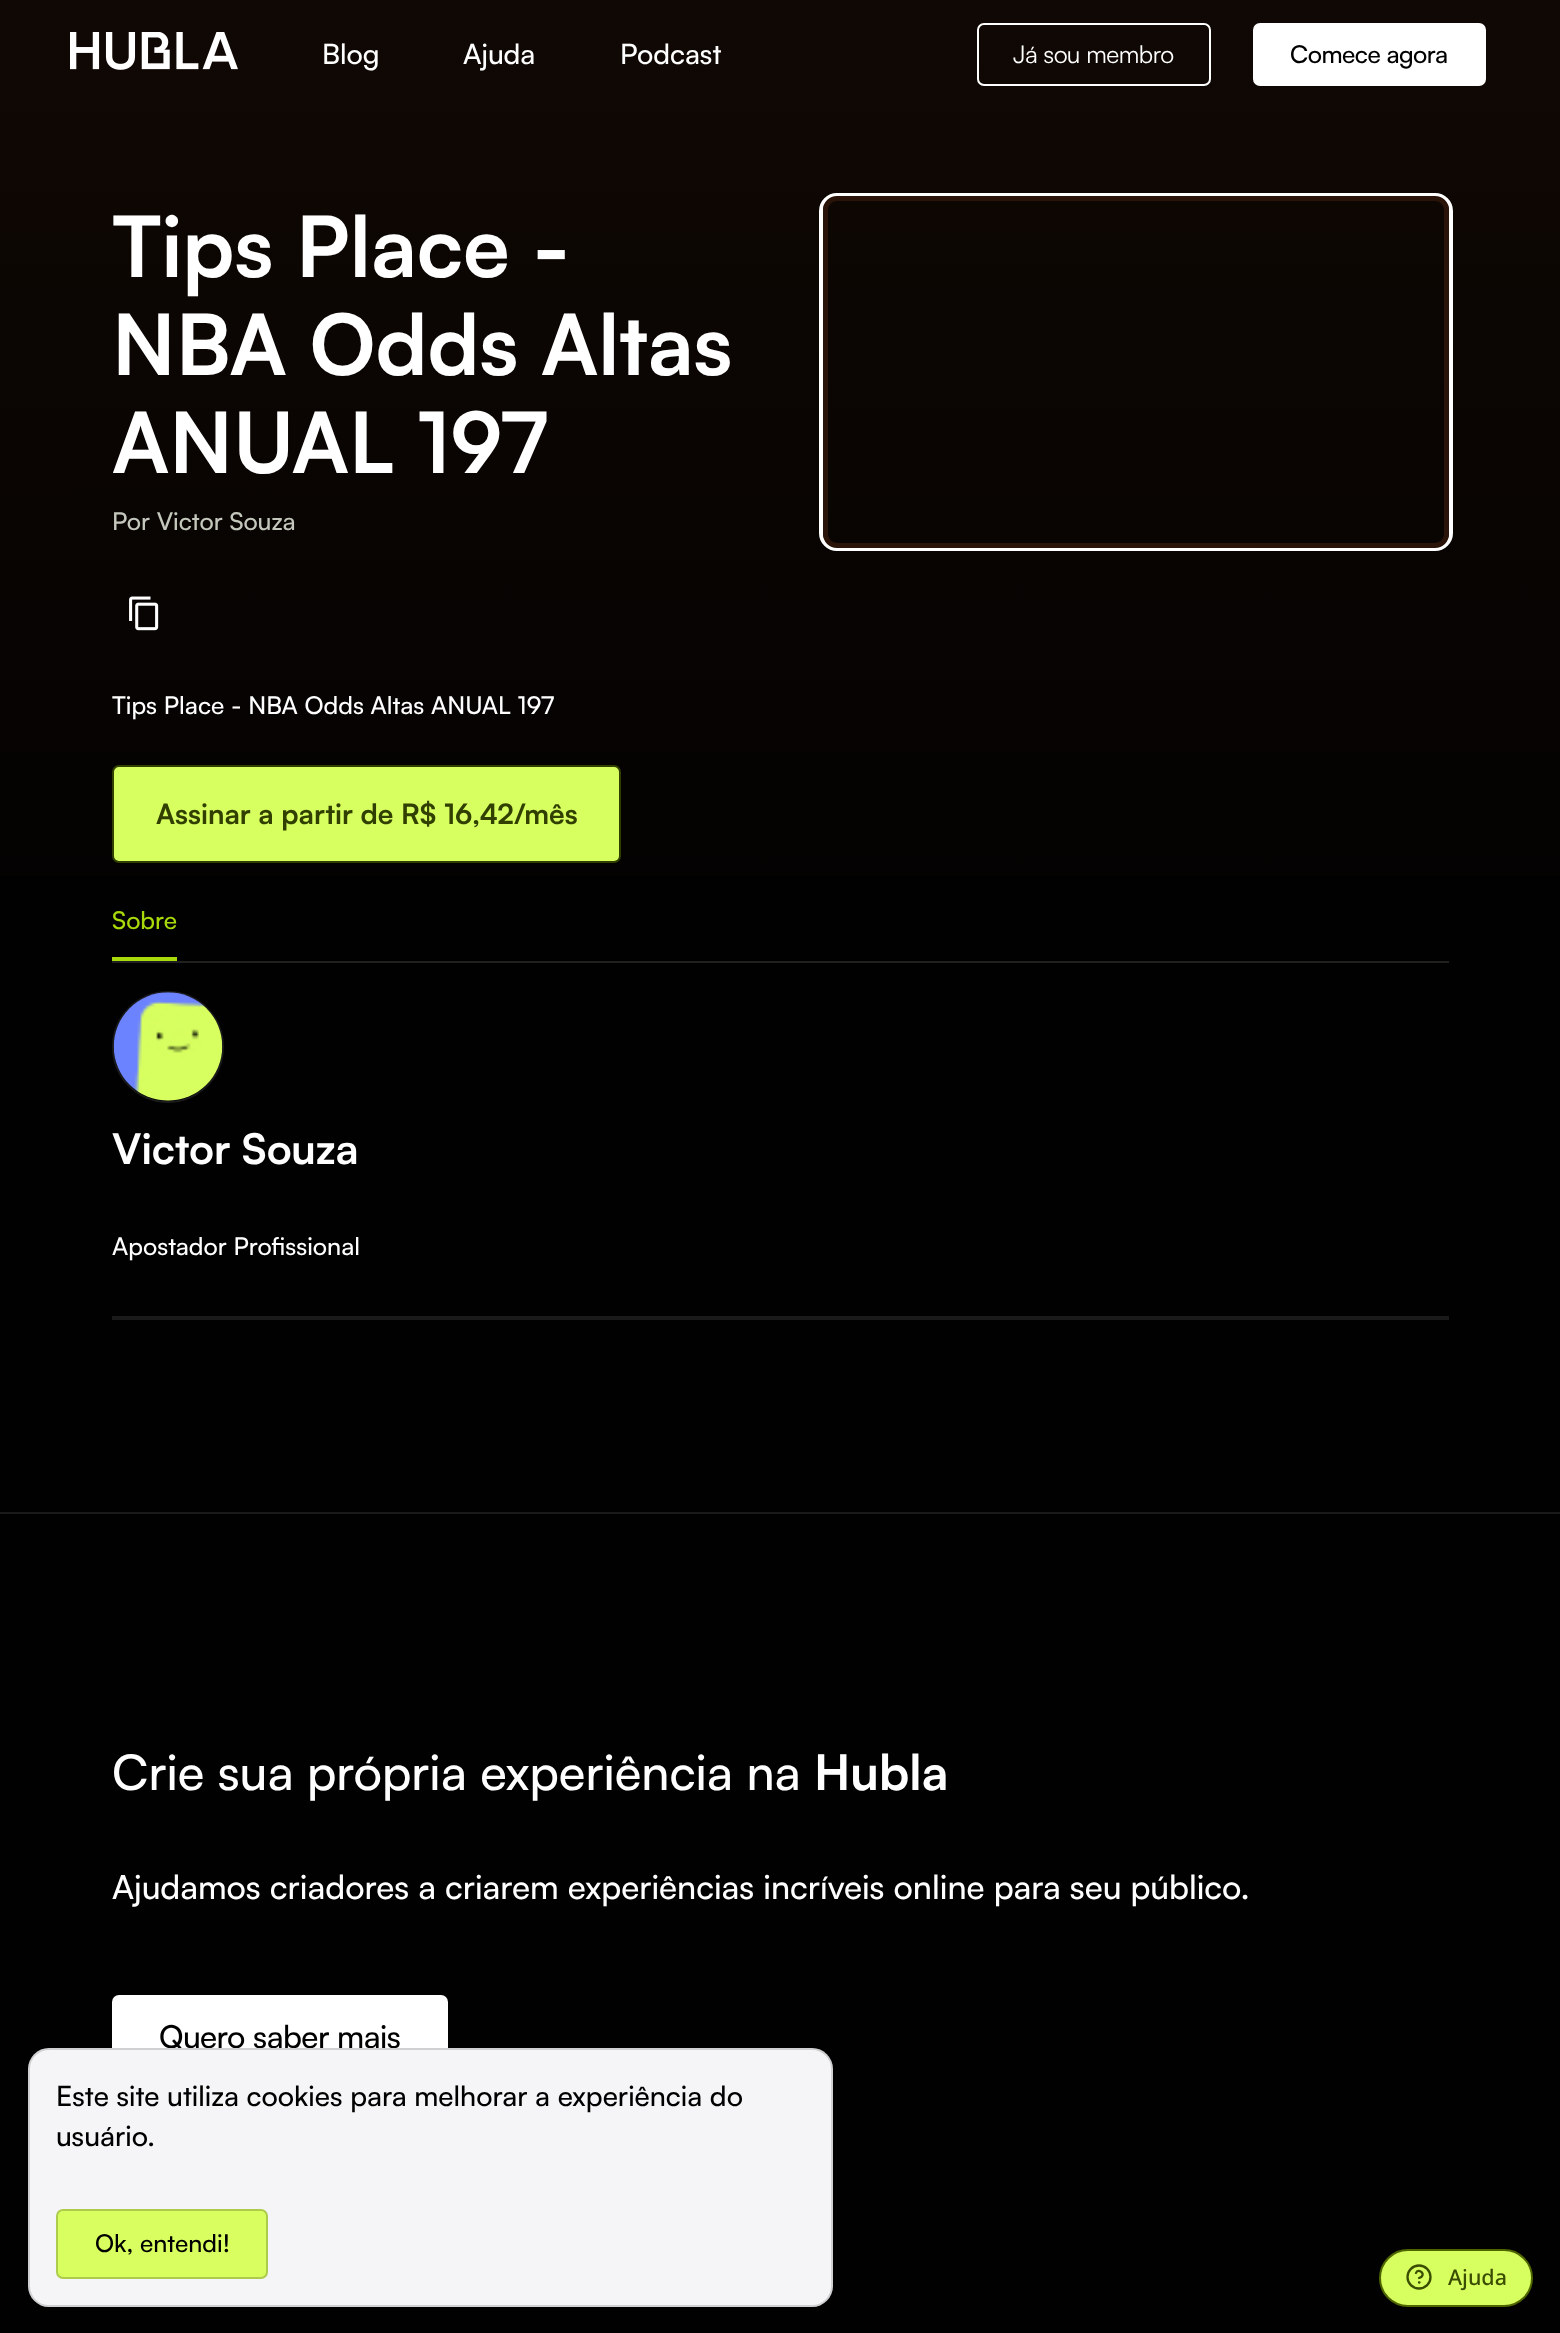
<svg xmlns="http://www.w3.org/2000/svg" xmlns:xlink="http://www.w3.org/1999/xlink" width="1560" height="2333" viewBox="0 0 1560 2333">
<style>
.cls-1{font:500 28px Satoshi;fill:#ffffff}
.cls-2{font:24.5px Satoshi;letter-spacing:-0.5px;fill:#ffffff}
.cls-3{font:500 24.5px Satoshi;letter-spacing:-0.5px;fill:#000000}
.cls-4{font:bold 84px Satoshi;fill:#ffffff}
.cls-5{font:500 24.5px Satoshi;fill:#c4c8bc}
.cls-6{font:500 24.5px Satoshi;fill:#ffffff}
.cls-7{font:bold 28px Satoshi;fill:#314000}
.cls-8{font:500 24.5px Satoshi;fill:#a8d90b}
.cls-9{font:bold 42px Satoshi;fill:#ffffff}
.cls-10{font:500 49px Satoshi;fill:#ffffff}
.cls-11{font:bold 49px Satoshi;fill:#ffffff}
.cls-12{font:500 33.25px Satoshi;fill:#ffffff}
.cls-13{font:500 31.5px Satoshi;letter-spacing:-0.5px;fill:#000000}
.cls-14{font:500 28px Satoshi;fill:#000000}
.cls-15{font:500 24.5px Satoshi;fill:#000000}
.cls-16{font:500 21.5px Noto Sans;fill:#3b4d00}
</style>
<defs>
<linearGradient id="g1" gradientUnits="userSpaceOnUse" x1="780" y1="0" x2="781" y2="1050"><stop offset="0" stop-color="#100804"/><stop offset="1" stop-color="#010101"/></linearGradient>
</defs>
<rect width="100%" height="100%" fill="#010101"/>
<rect fill="url(#g1)" x="0" y="0" width="1560" height="876"/>
<image xlink:href="image0.png" x="70" y="32" width="168" height="38"/>
<rect fill="none" stroke="#ffffff" stroke-width="2" x="978" y="24" width="232" height="61" rx="6"/>
<rect fill="#ffffff" x="1253" y="23" width="233" height="63" rx="7"/>
<image xlink:href="image1.png" x="129" y="596" width="30" height="35"/>
<rect fill="#d7ff60" stroke="#314000" stroke-width="2" x="113" y="766" width="507" height="96" rx="6"/>
<rect fill="none" stroke="#ffffff" stroke-width="4" x="821" y="195" width="630" height="354" rx="16"/>
<rect fill="none" stroke="#2a1409" stroke-width="5" x="825.5" y="198.5" width="621" height="347" rx="11.5"/>
<rect fill="#20201f" x="112" y="961" width="1337" height="2"/>
<rect fill="#a8d90b" x="112" y="957" width="65" height="4"/>
<circle fill="none" stroke="#1b1a1a" stroke-width="2" cx="168" cy="1047" r="55"/>
<image xlink:href="image2.png" x="113" y="992" width="110" height="109"/>
<rect fill="#1a1a1a" x="112" y="1316" width="1337" height="4"/>
<rect fill="#1a1a1a" x="0" y="1512" width="1560" height="2"/>
<rect fill="#ffffff" x="112" y="1995" width="336" height="81" rx="7"/>
<rect fill="#d7ff60" stroke="#4f6600" stroke-width="2" x="1380" y="2250" width="152" height="56" rx="28"/>
<circle fill="none" stroke="#3b4d00" stroke-width="2.3" cx="1419" cy="2277" r="11.5"/>
<path fill="none" stroke="#3b4d00" stroke-width="2.3" stroke-linecap="round" stroke-linejoin="round" d="M1416 2273C1418 2267 1428 2275 1419 2278M1419 2282.5H1419.5"/>
<text class="cls-1" x="322" y="64">Blog</text>
<text class="cls-1" x="463" y="64">Ajuda</text>
<text class="cls-1" x="620" y="64">Podcast</text>
<text class="cls-2" x="1013" y="63">Já sou membro</text>
<text class="cls-3" x="1290" y="63">Comece agora</text>
<text class="cls-4"><tspan x="112" y="277">Tips Place -</tspan><tspan x="112" y="375">NBA Odds Altas</tspan><tspan x="112" y="473">ANUAL 197</tspan></text>
<text class="cls-5" x="112" y="530">Por Victor Souza</text>
<text class="cls-6" x="112" y="714">Tips Place - NBA Odds Altas ANUAL 197</text>
<text class="cls-7" x="156" y="824">Assinar a partir de R$ 16,42/mês</text>
<text class="cls-8" x="112" y="929">Sobre</text>
<text class="cls-9" x="112" y="1164">Victor Souza</text>
<text class="cls-6" x="112" y="1255">Apostador Profissional</text>
<text class="cls-10" x="112" y="1790">Crie sua própria experiência na</text>
<text class="cls-11" x="814" y="1790">Hubla</text>
<text class="cls-12" x="112" y="1899">Ajudamos criadores a criarem experiências incríveis online para seu público.</text>
<text class="cls-13" x="159" y="2048">Quero saber mais</text>
<rect fill="#f5f5f7" x="28" y="2048" width="805" height="259" rx="21"/>
<rect fill="none" stroke="#000000" stroke-opacity="0.15" stroke-width="2" x="29" y="2049" width="803" height="257" rx="20"/>
<text class="cls-14"><tspan x="56" y="2106">Este site utiliza cookies para melhorar a experiência do</tspan><tspan x="56" y="2146">usuário.</tspan></text>
<rect fill="#d8ff5f" stroke="#adcc4c" stroke-width="2" x="57" y="2210" width="210" height="68" rx="6"/>
<text class="cls-15" x="95" y="2252">Ok, entendi!</text>
<text class="cls-16" x="1448" y="2285">Ajuda</text>
</svg>
